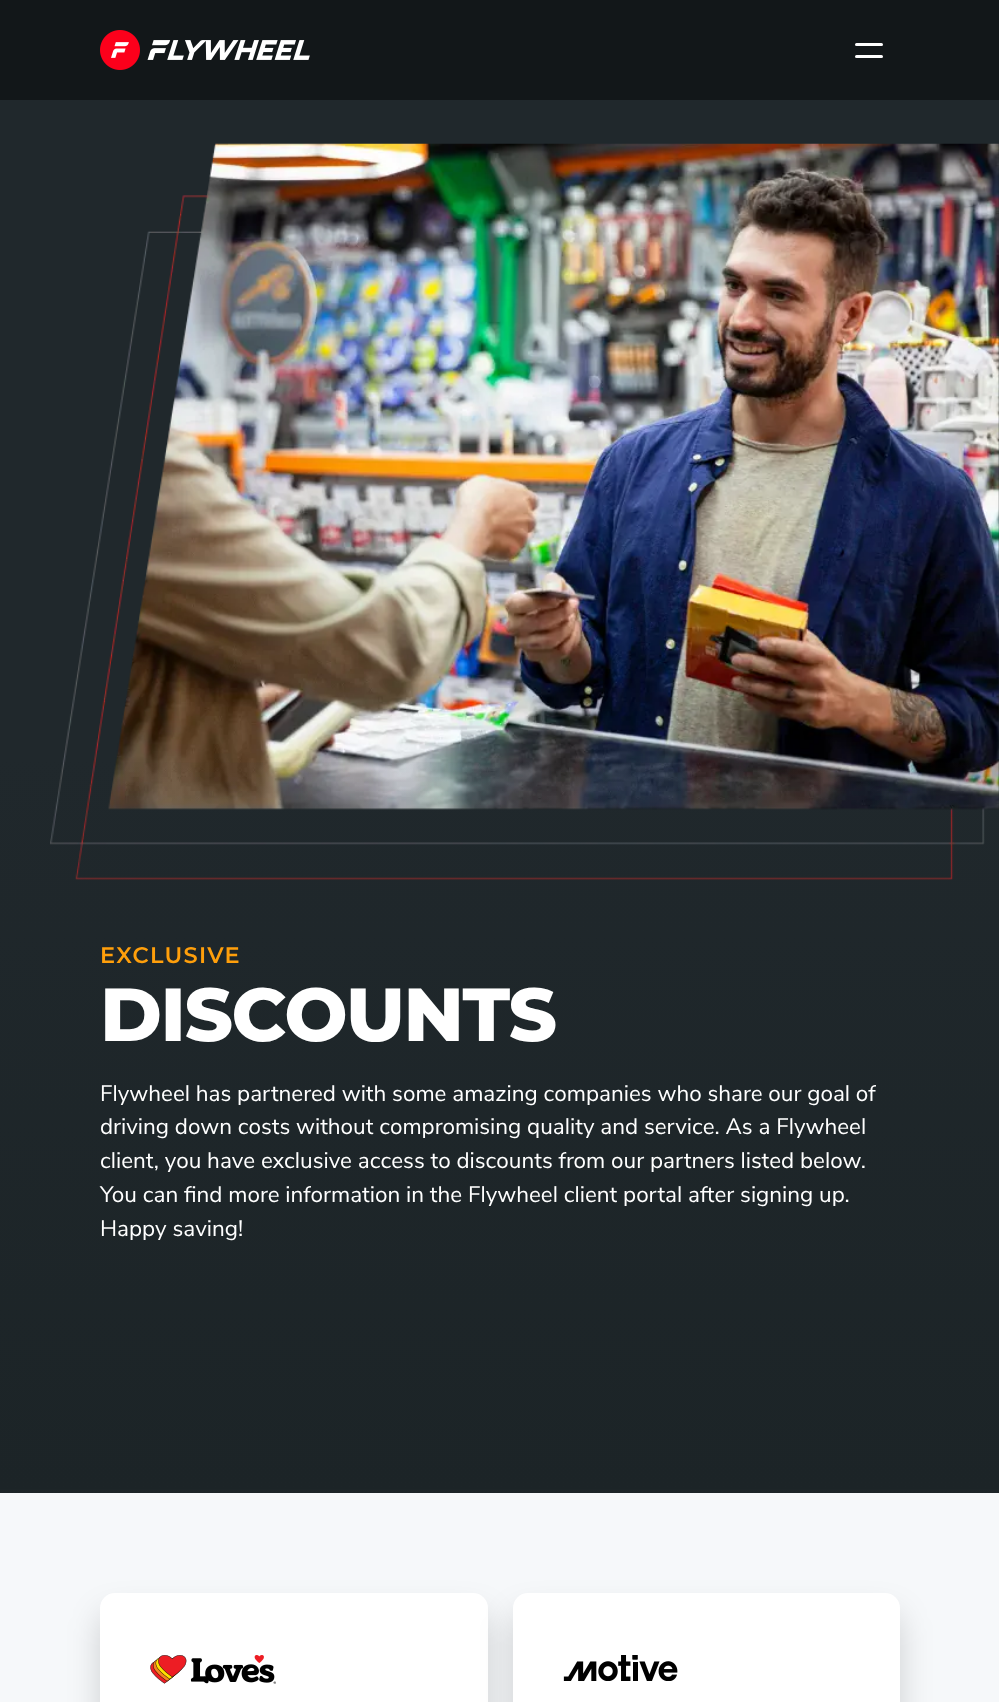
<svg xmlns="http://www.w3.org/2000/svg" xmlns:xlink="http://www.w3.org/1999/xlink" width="999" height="1702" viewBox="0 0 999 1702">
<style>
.cls-1{font:600 22.5px Montserrat;letter-spacing:1.25px;fill:#ff9f0b}
.cls-2{font:800 75px Montserrat;letter-spacing:-1.5px;fill:#ffffff}
.cls-3{font:22.5px Nunito Sans;fill:#ffffff}
</style>
<defs>
<linearGradient id="g1" gradientUnits="userSpaceOnUse" x1="500" y1="1493" x2="500" y2="746"><stop offset="0" stop-color="#1c2427"/><stop offset="1" stop-color="#1c2427" stop-opacity="0"/></linearGradient>
<linearGradient id="g2" gradientUnits="userSpaceOnUse" x1="500" y1="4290" x2="500" y2="1493"><stop offset="0" stop-color="#ffffff"/><stop offset="0.56" stop-color="#f6f8fa"/><stop offset="1" stop-color="#f6f8fa"/></linearGradient>
</defs>
<rect width="100%" height="100%" fill="#ffffff"/>
<rect fill="#121719" x="0" y="0" width="999" height="100"/>
<image xlink:href="image0.png" x="100" y="30" width="210" height="40"/>
<rect fill="#ffffff" x="855" y="43" width="28" height="3" rx="1.5"/>
<rect fill="#ffffff" x="855" y="55" width="28" height="3" rx="1.5"/>
<rect fill="#20282c" x="0" y="100" width="999" height="1389"/>
<image xlink:href="image1.png" x="50" y="143" width="949" height="737"/>
<rect fill="url(#g1)" x="0" y="762" width="999" height="731"/>
<rect fill="url(#g2)" x="0" y="1493" width="999" height="209"/>
<rect fill="#000000" fill-opacity="0.16" filter="blur(16px)" x="100" y="1613" width="388" height="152" rx="15"/>
<rect fill="#ffffff" x="100" y="1593" width="388" height="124" rx="15"/>
<image xlink:href="image2.png" x="150" y="1655" width="126" height="29"/>
<rect fill="#000000" fill-opacity="0.16" filter="blur(16px)" x="513" y="1613" width="387" height="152" rx="15"/>
<rect fill="#ffffff" x="513" y="1593" width="387" height="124" rx="15"/>
<image xlink:href="image3.png" x="563" y="1655" width="115" height="26"/>
<text class="cls-1" x="100" y="963">EXCLUSIVE</text>
<text class="cls-2" x="100" y="1041">DISCOUNTS</text>
<text class="cls-3"><tspan x="100" y="1101">Flywheel has partnered with some amazing companies who share our goal of</tspan><tspan x="100" y="1134">driving down costs without compromising quality and service. As a Flywheel</tspan><tspan x="100" y="1168">client, you have exclusive access to discounts from our partners listed below.</tspan><tspan x="100" y="1202">You can find more information in the Flywheel client portal after signing up.</tspan><tspan x="100" y="1236">Happy saving!</tspan></text>
</svg>
